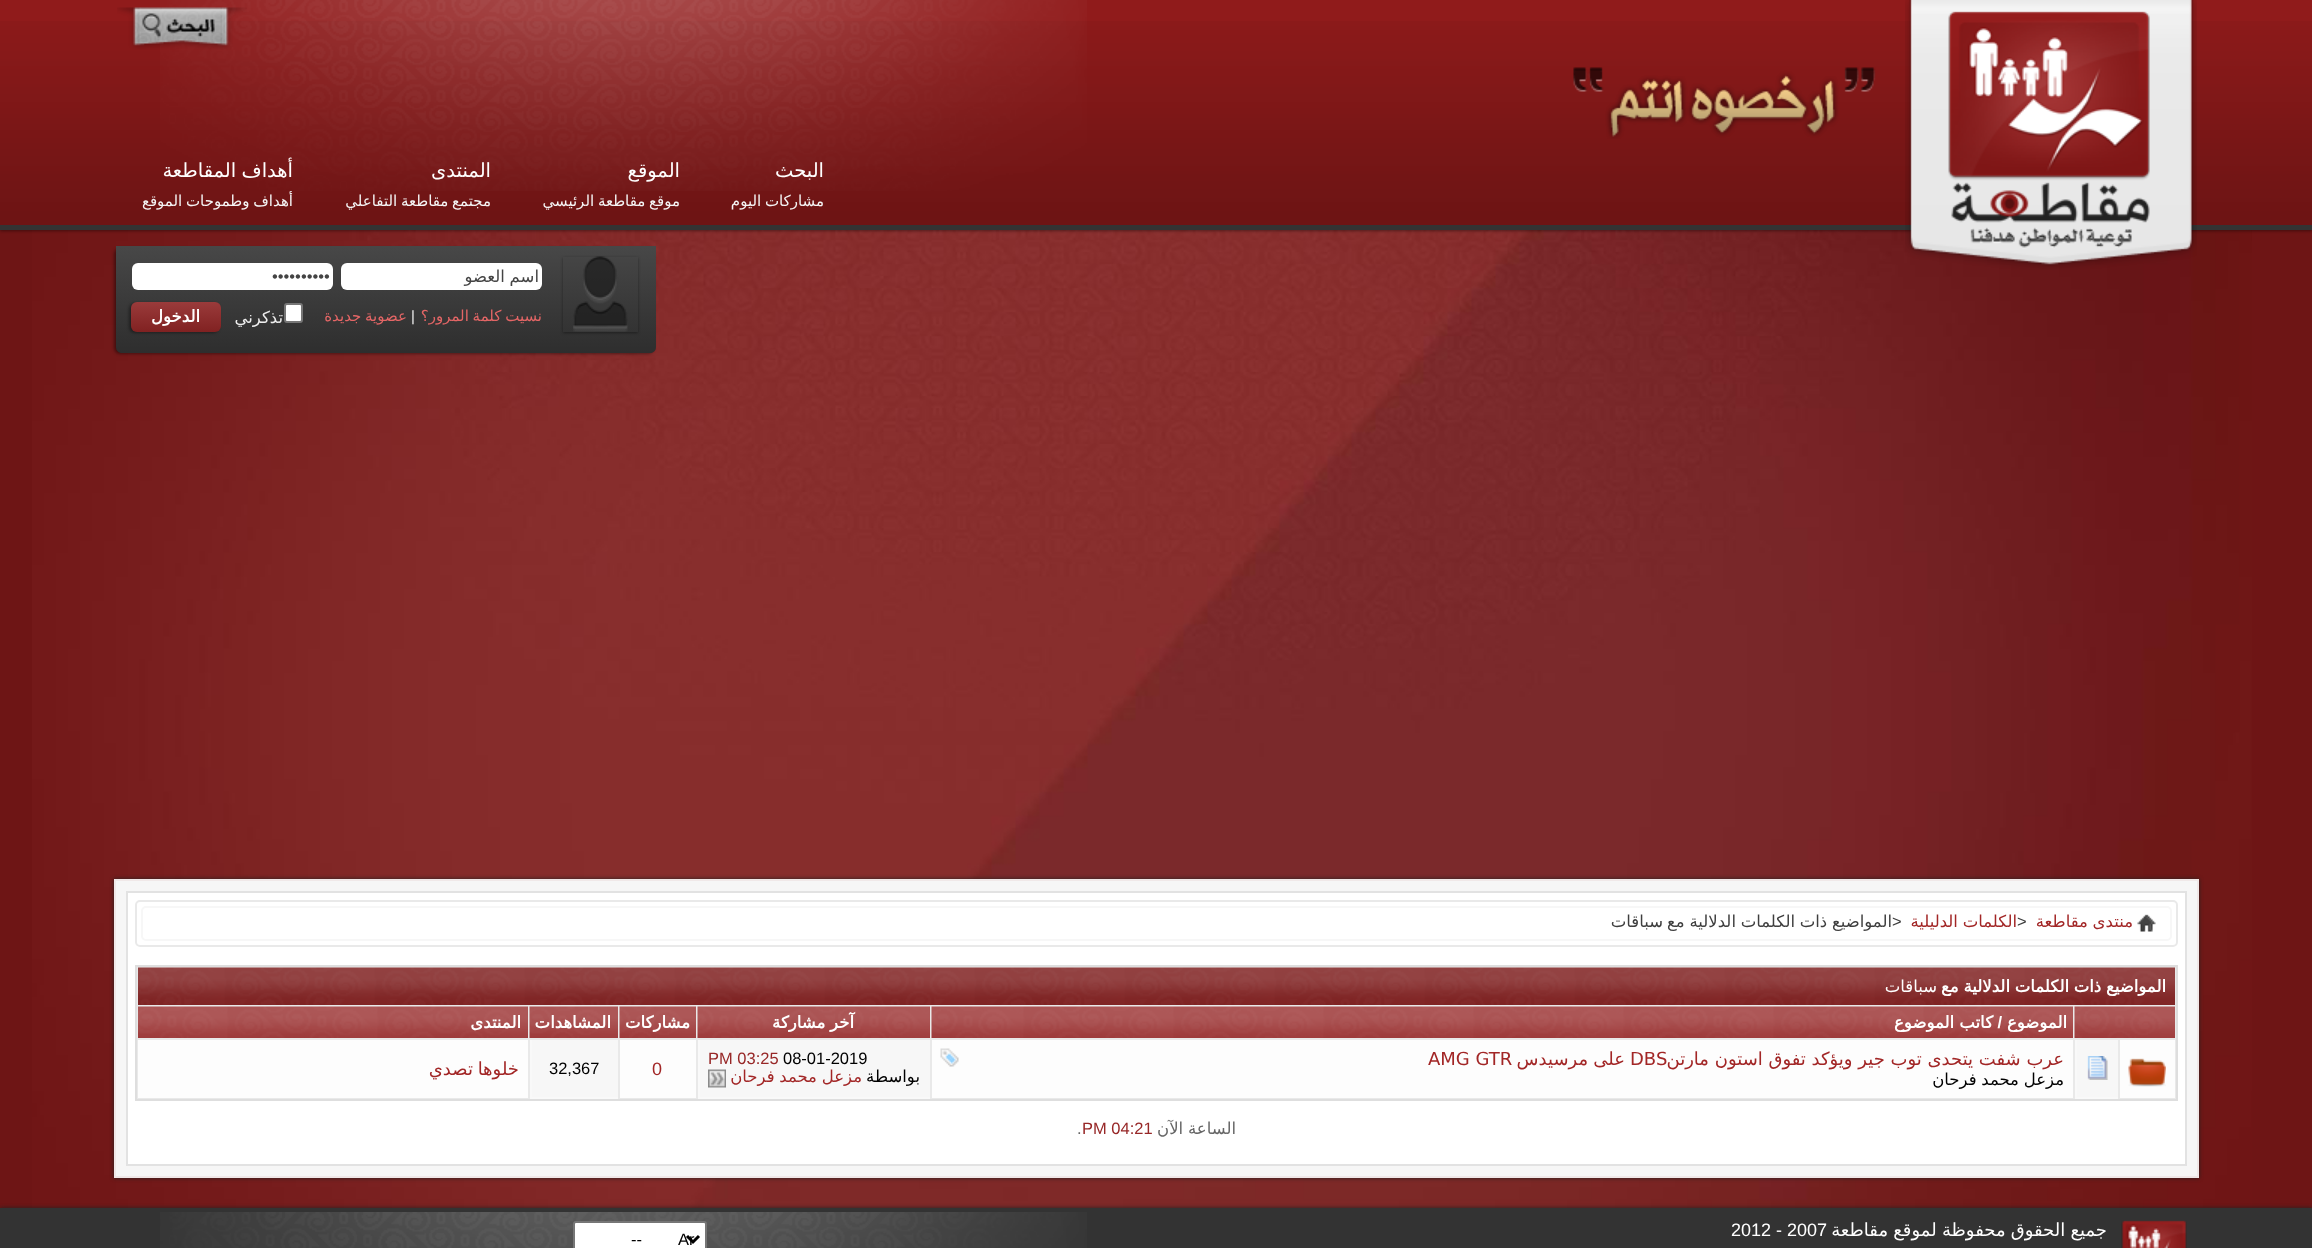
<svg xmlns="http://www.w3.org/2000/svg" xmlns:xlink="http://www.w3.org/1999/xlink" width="2312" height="1248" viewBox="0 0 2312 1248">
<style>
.cls-1{font:19.5px DejaVu Sans;direction:rtl;fill:#ffffff}
.cls-2{font:15px DejaVu Sans;direction:rtl;fill:#f5f5f5}
.cls-3{font:16.5px DejaVu Sans;direction:rtl;fill:#444444}
.cls-4{font:16.5px Liberation Sans;fill:#444444}
.cls-5{font:16.5px DejaVu Sans;direction:rtl;fill:#eeeeee}
.cls-6{font:bold 16.5px DejaVu Sans;direction:rtl;fill:#ffffff}
.cls-7{font:15px DejaVu Sans;direction:rtl;fill:#e46666}
.cls-8{font:15px Liberation Sans;fill:#eeeeee}
.cls-9{font:16.5px DejaVu Sans;direction:rtl;fill:#a22626}
.cls-10{font:16.5px Liberation Sans;fill:#3e3e3e}
.cls-11{font:16.5px DejaVu Sans;direction:rtl;fill:#3e3e3e}
.cls-12{font:16.5px DejaVu Sans;direction:rtl;fill:#ffffff}
.cls-13{font:bold 16.5px Liberation Sans;direction:rtl;fill:#ffffff}
.cls-14{font:18px DejaVu Sans;direction:rtl;fill:#a22626}
.cls-15{font:18px DejaVu Sans;fill:#a22626}
.cls-16{font:16.5px DejaVu Sans;direction:rtl;fill:#000000}
.cls-17{font:16.5px Liberation Sans;fill:#000000}
.cls-18{font:16.5px Liberation Sans;fill:#972727}
.cls-19{font:18px Liberation Sans;fill:#a22626}
.cls-20{font:16.5px DejaVu Sans;direction:rtl;fill:#666666}
.cls-21{font:16.5px Liberation Sans;fill:#666666}
.cls-22{font:18px DejaVu Sans;direction:rtl;fill:#ffffff}
.cls-23{font:18px Liberation Sans;fill:#ffffff}
</style>
<defs>
<linearGradient id="g1" gradientUnits="userSpaceOnUse" x1="386" y1="353" x2="386" y2="246"><stop offset="0" stop-color="#000000" stop-opacity="0.1"/><stop offset="1" stop-color="#ffffff" stop-opacity="0.1"/></linearGradient>
<clipPath id="clip1"><path d="M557 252H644V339H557ZM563 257H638V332H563Z" clip-rule="evenodd"/></clipPath>
<linearGradient id="g2" gradientUnits="userSpaceOnUse" x1="176" y1="332" x2="176" y2="302"><stop offset="0" stop-color="#000000" stop-opacity="0.1"/><stop offset="1" stop-color="#ffffff" stop-opacity="0.1"/></linearGradient>
</defs>
<rect width="100%" height="100%" fill="#6e1515"/>
<image xlink:href="image0.png" x="32" y="230" width="2220" height="978"/>
<rect fill="#000000" fill-opacity="0.4" filter="blur(1.5px)" x="0" y="2" width="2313" height="229"/>
<rect fill="#901b1b" x="0" y="0" width="2312" height="225"/>
<image xlink:href="image1.png" x="0" y="21" width="2312" height="204"/>
<rect fill="#333333" x="0" y="225" width="2312" height="5"/>
<image xlink:href="image2.png" x="160" y="0" width="927" height="191"/>
<image xlink:href="image3.png" x="1905" y="0" width="292" height="270"/>
<image xlink:href="image4.png" x="1948" y="11" width="202" height="238"/>
<image xlink:href="image5.png" x="117" y="7" width="130" height="43"/>
<image xlink:href="image6.png" x="1573" y="67" width="303" height="72"/>
<rect fill="#000000" fill-opacity="0.4" filter="blur(1.5px)" x="114" y="248" width="540" height="106" rx="6"/>
<path fill="#333333" d="M116 246H656V347C656 350.5 653.5 353 650 353H122C118.5 353 116 350.5 116 347Z"/>
<path fill="url(#g1)" d="M116 246H656V347C656 350.5 653.5 353 650 353H122C118.5 353 116 350.5 116 347Z"/>
<g clip-path="url(#clip1)">
<rect fill="#000000" fill-opacity="0.4" filter="blur(1.5px)" x="563" y="258" width="75" height="75"/>
</g>
<image xlink:href="image7.png" x="573" y="256" width="55" height="76"/>
<rect fill="#ffffff" x="341" y="263" width="201" height="27" rx="6"/>
<rect fill="#ffffff" x="132" y="263" width="201" height="27" rx="6"/>
<rect fill="#ffffff" stroke="#767676" stroke-width="2" x="285" y="304" width="17" height="18" rx="2"/>
<rect fill="#000000" fill-opacity="0.4" filter="blur(1.5px)" x="129" y="303" width="90" height="30" rx="6"/>
<rect fill="#8f2525" x="131" y="302" width="90" height="30" rx="6"/>
<rect fill="url(#g2)" x="131" y="302" width="90" height="30" rx="6"/>
<rect fill="#222222" filter="blur(2px)" x="114" y="879" width="2085" height="299"/>
<rect fill="#f6f6f6" stroke="#f0e8e8" stroke-width="2" x="115" y="880" width="2083" height="297"/>
<rect fill="#ffffff" stroke="#e2e2e2" stroke-width="2" x="127" y="892" width="2059" height="273"/>
<rect fill="none" stroke="#e9e9e9" stroke-width="2" x="136" y="901" width="2041" height="45" rx="4"/>
<rect fill="none" stroke="#f7f7f7" stroke-width="2" x="142" y="907" width="2029" height="33" rx="4"/>
<image xlink:href="image8.png" x="2137" y="914" width="19" height="18"/>
<rect fill="#e9e9e9" stroke="#dedede" stroke-width="2" x="136" y="966" width="2041" height="134"/>
<image xlink:href="image9.png" x="138" y="967" width="2037" height="38"/>
<image xlink:href="image10.png" x="2074" y="1006" width="101" height="32"/>
<image xlink:href="image11.png" x="931" y="1006" width="1142" height="32"/>
<image xlink:href="image12.png" x="697" y="1006" width="233" height="32"/>
<image xlink:href="image13.png" x="619" y="1006" width="77" height="32"/>
<image xlink:href="image14.png" x="529" y="1006" width="89" height="32"/>
<image xlink:href="image15.png" x="138" y="1006" width="390" height="32"/>
<rect fill="#fdfdfd" x="2120" y="1040" width="55" height="58"/>
<image xlink:href="image16.png" x="2128" y="1058" width="38" height="29"/>
<rect fill="#f7f7f7" x="2077" y="1040" width="41" height="57"/>
<rect fill="#f9f9f9" x="2075" y="1097" width="43" height="2"/>
<rect fill="#f9f9f9" x="2075" y="1040" width="2" height="58"/>
<image xlink:href="image17.png" x="2087" y="1056" width="21" height="24"/>
<rect fill="#fdfdfd" x="932" y="1040" width="1141" height="58"/>
<image xlink:href="image18.png" x="940" y="1048" width="19" height="19"/>
<rect fill="#f7f7f7" x="700" y="1040" width="230" height="57"/>
<rect fill="#f9f9f9" x="698" y="1097" width="232" height="2"/>
<rect fill="#f9f9f9" x="698" y="1040" width="2" height="58"/>
<image xlink:href="image19.png" x="708" y="1069" width="18" height="19"/>
<rect fill="#fdfdfd" x="620" y="1040" width="76" height="58"/>
<rect fill="#f7f7f7" x="532" y="1040" width="86" height="57"/>
<rect fill="#f9f9f9" x="530" y="1097" width="88" height="2"/>
<rect fill="#f9f9f9" x="530" y="1040" width="2" height="58"/>
<rect fill="#fdfdfd" x="138" y="1040" width="390" height="58"/>
<rect fill="#222222" filter="blur(2px)" x="0" y="1208" width="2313" height="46"/>
<rect fill="#333333" x="0" y="1208" width="2312" height="40"/>
<image xlink:href="image20.png" x="160" y="1212" width="927" height="36"/>
<image xlink:href="image21.png" x="2121" y="1220" width="66" height="28"/>
<rect fill="#ffffff" stroke="#767676" stroke-width="2" x="574" y="1222" width="132" height="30" rx="2"/>
<path fill="none" stroke="#000000" stroke-width="3" d="M687 1236L693 1242L699 1236"/>
<text class="cls-1" x="824" y="177">البحث</text>
<text class="cls-2" x="824" y="206" word-spacing="-1">مشاركات اليوم</text>
<text class="cls-1" x="680" y="177">الموقع</text>
<text class="cls-2" x="680" y="206" word-spacing="-1">موقع مقاطعة الرئيسي</text>
<text class="cls-1" x="491" y="177">المنتدى</text>
<text class="cls-2" x="491" y="206" word-spacing="-1">مجتمع مقاطعة التفاعلي</text>
<text class="cls-1" x="293" y="177" word-spacing="-1">أهداف المقاطعة</text>
<text class="cls-2" x="293" y="206" word-spacing="-1">أهداف وطموحات الموقع</text>
<text class="cls-3" x="539" y="282" word-spacing="-0.5">اسم العضو</text>
<text class="cls-4" x="272" y="282">••••••••••</text>
<text class="cls-5" x="283" y="323">تذكرني</text>
<text class="cls-6" x="200" y="322">الدخول</text>
<text class="cls-7" x="542" y="321" word-spacing="-1">نسيت كلمة المرور؟</text>
<text class="cls-8" x="411" y="321">|</text>
<text class="cls-7" x="407" y="321" word-spacing="-1">عضوية جديدة</text>
<text class="cls-9" x="2133" y="927" word-spacing="-0.5">منتدى مقاطعة</text>
<text class="cls-10" x="2017" y="927">&gt;</text>
<text class="cls-9" x="2017" y="927" word-spacing="-0.5">الكلمات الدليلية</text>
<text class="cls-10" x="1892" y="927">&gt;</text>
<text class="cls-11" x="1892" y="927" word-spacing="-0.5">المواضيع ذات الكلمات الدلالية مع</text>
<text class="cls-11" x="1663" y="927">سباقات</text>
<text class="cls-6" x="2166" y="992" word-spacing="-0.5">المواضيع ذات الكلمات الدلالية مع</text>
<text class="cls-12" x="1937" y="992">سباقات</text>
<text class="cls-6" x="2067" y="1028">الموضوع</text>
<text class="cls-13" x="2002" y="1028">/</text>
<text class="cls-6" x="1993" y="1028">كاتب الموضوع</text>
<text class="cls-6" x="854" y="1028" word-spacing="-0.5">آخر مشاركة</text>
<text class="cls-6" x="690" y="1028">مشاركات</text>
<text class="cls-6" x="611" y="1028">المشاهدات</text>
<text class="cls-6" x="521" y="1028">المنتدى</text>
<text class="cls-14" x="2064" y="1065">عرب شفت يتحدى توب جير ويؤكد تفوق استون مارتن</text>
<text class="cls-15" x="1630" y="1065">DBS</text>
<text class="cls-14" x="1625" y="1065" word-spacing="-0.5">على مرسيدس</text>
<text class="cls-15" x="1428" y="1065">AMG GTR</text>
<text class="cls-16" x="2064" y="1085" word-spacing="-0.5">مزعل محمد فرحان</text>
<text class="cls-17" x="783" y="1064">08-01-2019</text>
<text class="cls-18" x="708" y="1064">PM 03:25</text>
<text class="cls-16" x="920" y="1082">بواسطة</text>
<text class="cls-9" x="862" y="1082" word-spacing="-0.5">مزعل محمد فرحان</text>
<text class="cls-19" x="652" y="1075">0</text>
<text class="cls-17" x="549" y="1074">32,367</text>
<text class="cls-14" x="519" y="1075" word-spacing="-1">خلوها تصدي</text>
<text class="cls-20" x="1236" y="1134" word-spacing="-0.5">الساعة الآن</text>
<text class="cls-18" x="1082" y="1134">PM 04:21</text>
<text class="cls-21" x="1077" y="1134">.</text>
<text class="cls-22" x="2107" y="1236" word-spacing="-0.5">جميع الحقوق محفوظة لموقع مقاطعة</text>
<text class="cls-23" x="1731" y="1236">2012 - 2007</text>
<text class="cls-17" x="678" y="1245">Ar</text>
<text class="cls-17" x="631" y="1245">--</text>
</svg>
